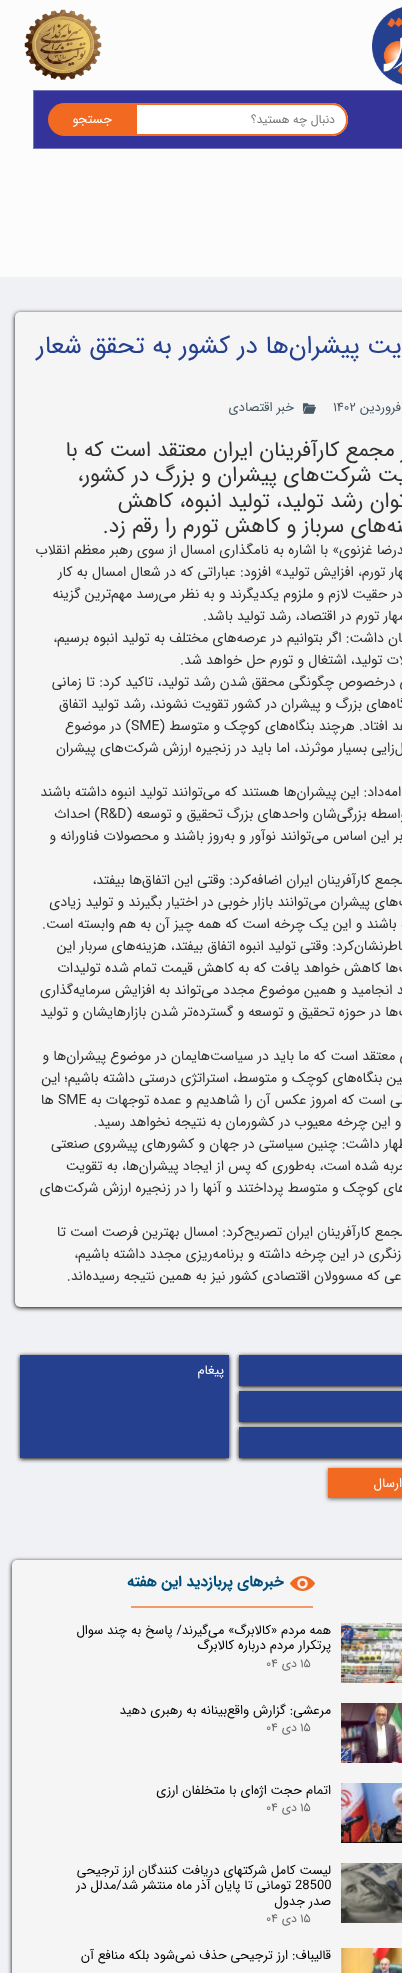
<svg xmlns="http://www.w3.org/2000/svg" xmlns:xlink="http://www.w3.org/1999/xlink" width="402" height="1973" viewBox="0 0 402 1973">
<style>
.cls-1{font:12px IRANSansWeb;direction:rtl;fill:#757575}
.cls-2{font:13px IRANSansWeb;direction:rtl;fill:#ffffff}
.cls-3{font:25px IRANSansWeb;direction:rtl;fill:#25408f}
.cls-4{font:13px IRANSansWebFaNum;direction:rtl;fill:#455863}
.cls-5{font:13px IRANSansWebFaNum;fill:#455863}
.cls-6{font:21px IRANSansWeb;direction:rtl;fill:#313131}
.cls-7{font:14px IRANSansWeb;direction:rtl;fill:#313131}
.cls-8{font:14px IRANSansWeb;fill:#313131}
.cls-9{font:bold 15.25px IRANSansWeb;direction:rtl;fill:#004e7c}
.cls-10{font:13px IRANSansWeb;direction:rtl;fill:#000000}
.cls-11{font:12px IRANSansWeb;fill:#666666}
.cls-12{font:12px IRANSansWeb;direction:rtl;fill:#666666}
.cls-13{font:13px IRANSansWeb;fill:#000000}
</style>
<rect width="100%" height="100%" fill="#fcfcfc"/>
<image xlink:href="image0.png" x="372" y="7" width="30" height="78"/>
<image xlink:href="image1.png" x="24" y="9" width="78" height="71"/>
<rect fill="#333399" stroke="#7777b9" x="33.5" y="90.5" width="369" height="58"/>
<path fill="#ffffff" d="M137 103H331.5C340.5 103 348 110.5 348 119.5C348 128.5 340.5 136 331.5 136H137Z"/>
<path fill="#f26921" fill-rule="evenodd" d="M137 103H332C341 103 348 110 348 120C348 129 341 136 332 136H137ZM137 105H332C340 105 346 111 346 120C346 128 340 134 332 134H137Z"/>
<path fill="#f26921" d="M64.5 103H137V136H64.5C55.5 136 48 128.5 48 119.5C48 110.5 55.5 103 64.5 103Z"/>
<rect fill="#f0f1f4" x="0" y="277" width="402" height="1696"/>
<rect fill="#000000" filter="blur(2px)" x="15" y="313" width="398" height="995" rx="5"/>
<rect fill="#f5f5f5" x="15" y="312" width="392" height="995" rx="5"/>
<image xlink:href="image2.png" x="303" y="403" width="13" height="11"/>
<rect fill="#000000" filter="blur(2px)" x="239" y="1356" width="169" height="31"/>
<rect fill="#25408f" x="239" y="1355" width="163" height="31"/>
<rect fill="#000000" filter="blur(2px)" x="239" y="1392" width="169" height="31"/>
<rect fill="#25408f" x="239" y="1391" width="163" height="31"/>
<rect fill="#000000" filter="blur(2px)" x="239" y="1428" width="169" height="31"/>
<rect fill="#25408f" x="239" y="1427" width="163" height="31"/>
<rect fill="#000000" filter="blur(2px)" x="20" y="1356" width="209" height="103"/>
<rect fill="#25408f" x="20" y="1355" width="209" height="103"/>
<rect fill="#666666" filter="blur(2px)" x="328" y="1469" width="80" height="30"/>
<rect fill="#f26921" x="328" y="1468" width="74" height="30"/>
<rect fill="#000000" filter="blur(2px)" x="12" y="1561" width="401" height="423" rx="5"/>
<rect fill="#f5f5f5" x="12" y="1560" width="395" height="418" rx="5"/>
<image xlink:href="image3.png" x="290" y="1576" width="25" height="15"/>
<rect fill="#f39a6b" x="131" y="1606" width="182" height="2"/>
<image xlink:href="image4.png" x="341" y="1623" width="61" height="60"/>
<image xlink:href="image5.png" x="341" y="1703" width="61" height="60"/>
<image xlink:href="image6.png" x="341" y="1783" width="61" height="60"/>
<image xlink:href="image7.png" x="341" y="1863" width="61" height="60"/>
<image xlink:href="image8.png" x="341" y="1948" width="61" height="25"/>
<text class="cls-1" x="335" y="123">دنبال چه هستید؟</text>
<text class="cls-2" x="112" y="123">جستجو</text>
<text class="cls-3" x="433" y="353">تقویت پیشران‌ها در کشور به تحقق شعار</text>
<text class="cls-4" x="401" y="411">فروردین</text>
<text class="cls-5" x="333" y="411">۱۴۰۲</text>
<text class="cls-4" x="294" y="411">خبر اقتصادی</text>
<text class="cls-6"><tspan x="433" y="456">دبیر مجمع کارآفرینان ایران معتقد است که با</tspan><tspan x="433" y="481">تقویت شرکت‌های پیشران و بزرگ در کشور،</tspan><tspan x="433" y="507">می‌توان رشد تولید، تولید انبوه، کاهش</tspan><tspan x="433" y="532">هزینه‌های سرباز و کاهش تورم را رقم زد.</tspan></text>
<text class="cls-7"><tspan x="433" y="554">«حمیدرضا غزنوی» با اشاره به نامگذاری امسال از سوی رهبر معظم انقلاب</tspan><tspan x="433" y="576">به «مهار تورم، افزایش تولید» افزود: عباراتی که در شعال امسال به کار</tspan><tspan x="433" y="598">رفته، در حقیت لازم و ملزوم یکدیگرند و به نظر می‌رسد مهم‌ترین گزینه</tspan><tspan x="433" y="620">برای مهار تورم در اقتصاد، رشد تولید باشد.</tspan><tspan x="433" y="642">وی بیان داشت: اگر بتوانیم در عرصه‌های مختلف به تولید انبوه برسیم،</tspan><tspan x="433" y="664">مشکلات تولید، اشتغال و تورم حل خواهد شد.</tspan><tspan x="433" y="686">غزنوی درخصوص چگونگی محقق شدن رشد تولید، تاکید کرد: تا زمانی</tspan><tspan x="433" y="708">که بنگاه‌های بزرگ و پیشران در کشور تقویت نشوند، رشد تولید اتفاق</tspan><tspan x="433" y="730">نخواهد افتاد. هرچند بنگاه‌های کوچک و متوسط (</tspan></text>
<text class="cls-8" x="131" y="730">SME</text>
<text class="cls-7" x="131" y="730">) در موضوع</text>
<text class="cls-7" x="433" y="752">اشتغال‌زایی بسیار موثرند، اما باید در زنجیره ارزش شرکت‌های پیشران</text>
<text class="cls-7"><tspan x="433" y="796">وی ادامه‌داد: این پیشران‌ها هستند که می‌توانند تولید انبوه داشته باشند</tspan><tspan x="433" y="818">و به واسطه بزرگی‌شان واحدهای بزرگ تحقیق و توسعه (</tspan></text>
<text class="cls-8" x="100" y="818">R&amp;D</text>
<text class="cls-7" x="100" y="818">) احداث</text>
<text class="cls-7" x="433" y="840">کنند؛ بر این اساس می‌توانند نوآور و به‌روز باشند و محصولات فناورانه و</text>
<text class="cls-7"><tspan x="433" y="884">دبیر مجمع کارآفرینان ایران اضافه‌کرد: وقتی این اتفاق‌ها بیفتد،</tspan><tspan x="433" y="906">شرکت‌های پیشران می‌توانند بازار خوبی در اختیار بگیرند و تولید زیادی</tspan><tspan x="433" y="928">داشته باشند و این یک چرخه است که همه چیز آن به هم وابسته است.</tspan><tspan x="433" y="950">وی خاطرنشان‌کرد: وقتی تولید انبوه اتفاق بیفتد، هزینه‌های سربار این</tspan><tspan x="433" y="972">شرکت‌ها کاهش خواهد یافت که به کاهش قیمت تمام شده تولیدات</tspan><tspan x="433" y="994">خواهد انجامید و همین موضوع مجدد می‌تواند به افزایش سرمایه‌گذاری</tspan><tspan x="433" y="1016">شرکت‌ها در حوزه تحقیق و توسعه و گسترده‌تر شدن بازارهایشان و تولید</tspan></text>
<text class="cls-7"><tspan x="433" y="1060">غزنوی معتقد است که ما باید در سیاست‌هایمان در موضوع پیشران‌ها و</tspan><tspan x="433" y="1082">همچنین بنگاه‌های کوچک و متوسط، استراتژی درستی داشته باشیم؛ این</tspan><tspan x="433" y="1104">در حالی است که امروز عکس آن را شاهدیم و عمده توجهات به</tspan></text>
<text class="cls-8" x="58" y="1104">SME</text>
<text class="cls-7" x="58" y="1104">‌ ها</text>
<text class="cls-7"><tspan x="433" y="1126">است و این چرخه معیوب در کشورمان به نتیجه نخواهد رسید.</tspan><tspan x="433" y="1148">وی اظهار داشت: چنین سیاستی در جهان و کشورهای پیشروی صنعتی</tspan><tspan x="433" y="1170">نیز تجربه شده است، به‌طوری که پس از ایجاد پیشران‌ها، به تقویت</tspan><tspan x="433" y="1192">بنگاه‌های کوچک و متوسط پرداختند و آنها را در زنجیره ارزش شرکت‌های</tspan></text>
<text class="cls-7"><tspan x="433" y="1236">دبیر مجمع کارآفرینان ایران تصریح‌کرد: امسال بهترین فرصت است تا</tspan><tspan x="433" y="1258">یک بازنگری در این چرخه داشته و برنامه‌ریزی مجدد داشته باشیم،</tspan><tspan x="433" y="1280">موضوعی که مسوولان اقتصادی کشور نیز به همین نتیجه رسیده‌اند.</tspan></text>
<text class="cls-2" x="224" y="1374">پیغام</text>
<text class="cls-2" x="402" y="1487">ارسال</text>
<text class="cls-9" x="284" y="1586">خبرهای پربازدید این هفته</text>
<text class="cls-10"><tspan x="331" y="1634">همه مردم «کالابرگ» می‌گیرند/ پاسخ به چند سوال</tspan><tspan x="331" y="1649">پرتکرار مردم درباره کالابرگ</tspan></text>
<text class="cls-11" x="300" y="1667">۱۵</text>
<text class="cls-12" x="297" y="1667">دی</text>
<text class="cls-11" x="266" y="1667">۰۴</text>
<text class="cls-10" x="331" y="1714">مرعشی: گزارش واقع‌بینانه‌ به رهبری دهید</text>
<text class="cls-11" x="300" y="1731">۱۵</text>
<text class="cls-12" x="297" y="1731">دی</text>
<text class="cls-11" x="266" y="1731">۰۴</text>
<text class="cls-10" x="331" y="1794">اتمام حجت اژه‌ای با متخلفان ارزی</text>
<text class="cls-11" x="300" y="1811">۱۵</text>
<text class="cls-12" x="297" y="1811">دی</text>
<text class="cls-11" x="266" y="1811">۰۴</text>
<text class="cls-10" x="331" y="1874">لیست کامل شرکتهای دریافت کنندگان ارز ترجیحی</text>
<text class="cls-13" x="295" y="1889">28500</text>
<text class="cls-10" x="291" y="1889">تومانی تا پایان آذر ماه منتشر شد/مدلل در</text>
<text class="cls-10" x="331" y="1905">صدر جدول</text>
<text class="cls-11" x="300" y="1922">۱۵</text>
<text class="cls-12" x="297" y="1922">دی</text>
<text class="cls-11" x="266" y="1922">۰۴</text>
<text class="cls-10" x="331" y="1959">قالیباف: ارز ترجیحی‌ حذف نمی‌شود بلکه منافع آن</text>
</svg>
